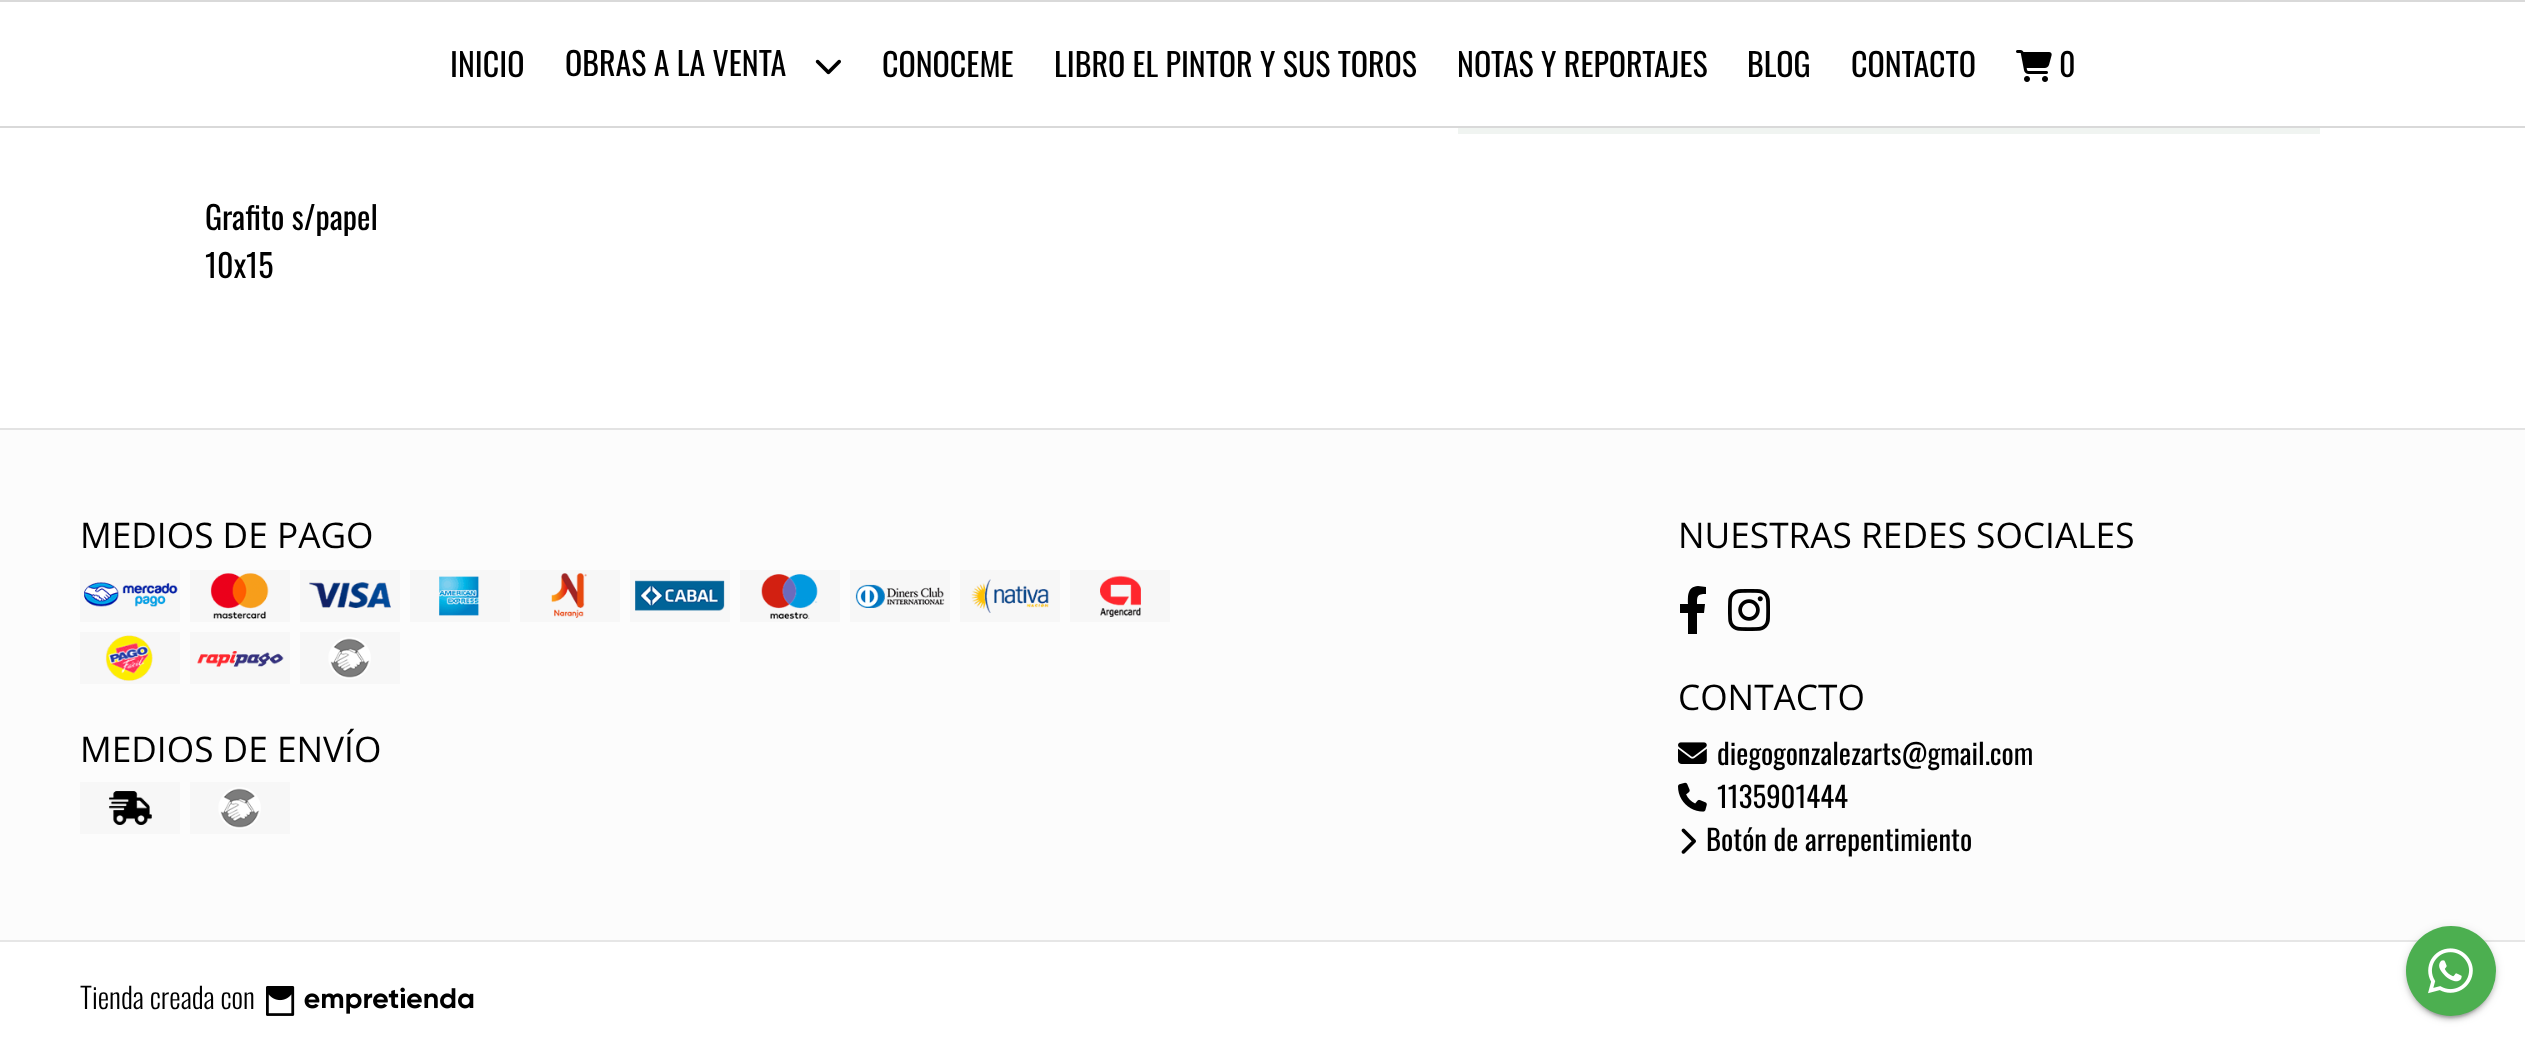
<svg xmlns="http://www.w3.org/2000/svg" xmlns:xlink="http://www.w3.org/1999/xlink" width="2525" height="1045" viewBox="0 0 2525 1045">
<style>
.cls-1{font:32px Oswald;fill:#000000}
.cls-2{font:35.25px Open Sans;fill:#000000}
.cls-3{font:28.75px Oswald;fill:#000000}
.cls-4{font:300 28.75px Oswald;fill:#000000}
</style>
<rect width="100%" height="100%" fill="#ffffff"/>
<rect fill="#d9d9d9" x="0" y="0" width="2525" height="2"/>
<rect fill="#d9d9d9" x="0" y="126" width="2525" height="2"/>
<image xlink:href="image0.png" x="815" y="59" width="26" height="16"/>
<image xlink:href="image1.png" x="2016" y="50" width="36" height="32"/>
<rect fill="#f0f4f1" x="1458" y="128" width="862" height="6"/>
<rect fill="#fcfcfc" x="0" y="430" width="2525" height="510"/>
<rect fill="#e3e3e3" x="0" y="428" width="2525" height="2"/>
<image xlink:href="image2.png" x="80" y="570" width="100" height="52"/>
<image xlink:href="image3.png" x="190" y="570" width="100" height="52"/>
<image xlink:href="image4.png" x="300" y="570" width="100" height="52"/>
<image xlink:href="image5.png" x="410" y="570" width="100" height="52"/>
<image xlink:href="image6.png" x="520" y="570" width="100" height="52"/>
<image xlink:href="image7.png" x="630" y="570" width="100" height="52"/>
<image xlink:href="image8.png" x="740" y="570" width="100" height="52"/>
<image xlink:href="image9.png" x="850" y="570" width="100" height="52"/>
<image xlink:href="image10.png" x="960" y="570" width="100" height="52"/>
<image xlink:href="image11.png" x="1070" y="570" width="100" height="52"/>
<image xlink:href="image12.png" x="80" y="632" width="100" height="52"/>
<image xlink:href="image13.png" x="190" y="632" width="100" height="52"/>
<image xlink:href="image14.png" x="300" y="632" width="100" height="52"/>
<image xlink:href="image15.png" x="80" y="782" width="100" height="52"/>
<image xlink:href="image16.png" x="190" y="782" width="100" height="52"/>
<path fill="#000000" d="M1704 613L1705 604H1697C1697 596 1697 594 1706 594V587L1698 586C1687 587 1688 596 1688 604H1680V613H1688V634H1697V613Z"/>
<image xlink:href="image17.png" x="1728" y="589" width="42" height="42"/>
<image xlink:href="image18.png" x="1678" y="742" width="29" height="22"/>
<image xlink:href="image19.png" x="1678" y="782" width="29" height="30"/>
<image xlink:href="image20.png" x="1681" y="828" width="15" height="26"/>
<rect fill="#e6e6e6" x="0" y="940" width="2525" height="2"/>
<image xlink:href="image21.png" x="266" y="986" width="208" height="30"/>
<rect fill="#000000" fill-opacity="0.2" filter="blur(1px)" x="2410" y="936" width="82" height="82" rx="41"/>
<rect fill="#000000" fill-opacity="0.12" filter="blur(5px)" x="2406" y="928" width="90" height="90" rx="45"/>
<rect fill="#000000" fill-opacity="0.14" filter="blur(2px)" x="2406" y="930" width="90" height="90" rx="45"/>
<circle fill="#4caf50" cx="2451" cy="971" r="45"/>
<image xlink:href="image22.png" x="2428" y="948" width="45" height="46"/>
<text class="cls-1" x="450" y="77">INICIO</text>
<text class="cls-1" x="565" y="76">OBRAS A LA VENTA</text>
<text class="cls-1" x="882" y="77">CONOCEME</text>
<text class="cls-1" x="1054" y="77">LIBRO EL PINTOR Y SUS TOROS</text>
<text class="cls-1" x="1457" y="77">NOTAS Y REPORTAJES</text>
<text class="cls-1" x="1747" y="77">BLOG</text>
<text class="cls-1" x="1851" y="77">CONTACTO</text>
<text class="cls-1" x="2059" y="77">0</text>
<text class="cls-1"><tspan x="205" y="230">Grafito s/papel</tspan><tspan x="205" y="278">10x15</tspan></text>
<text class="cls-2" x="80" y="548">MEDIOS DE PAGO</text>
<text class="cls-2" x="80" y="762">MEDIOS DE ENVÍO</text>
<text class="cls-2" x="1678" y="548">NUESTRAS REDES SOCIALES</text>
<text class="cls-2" x="1678" y="710">CONTACTO</text>
<text class="cls-3"><tspan x="1717" y="765">diegogonzalezarts@gmail.com</tspan><tspan x="1717" y="808">1135901444</tspan></text>
<text class="cls-3" x="1706" y="851">Botón de arrepentimiento</text>
<text class="cls-4" x="80" y="1009">Tienda creada con</text>
</svg>
